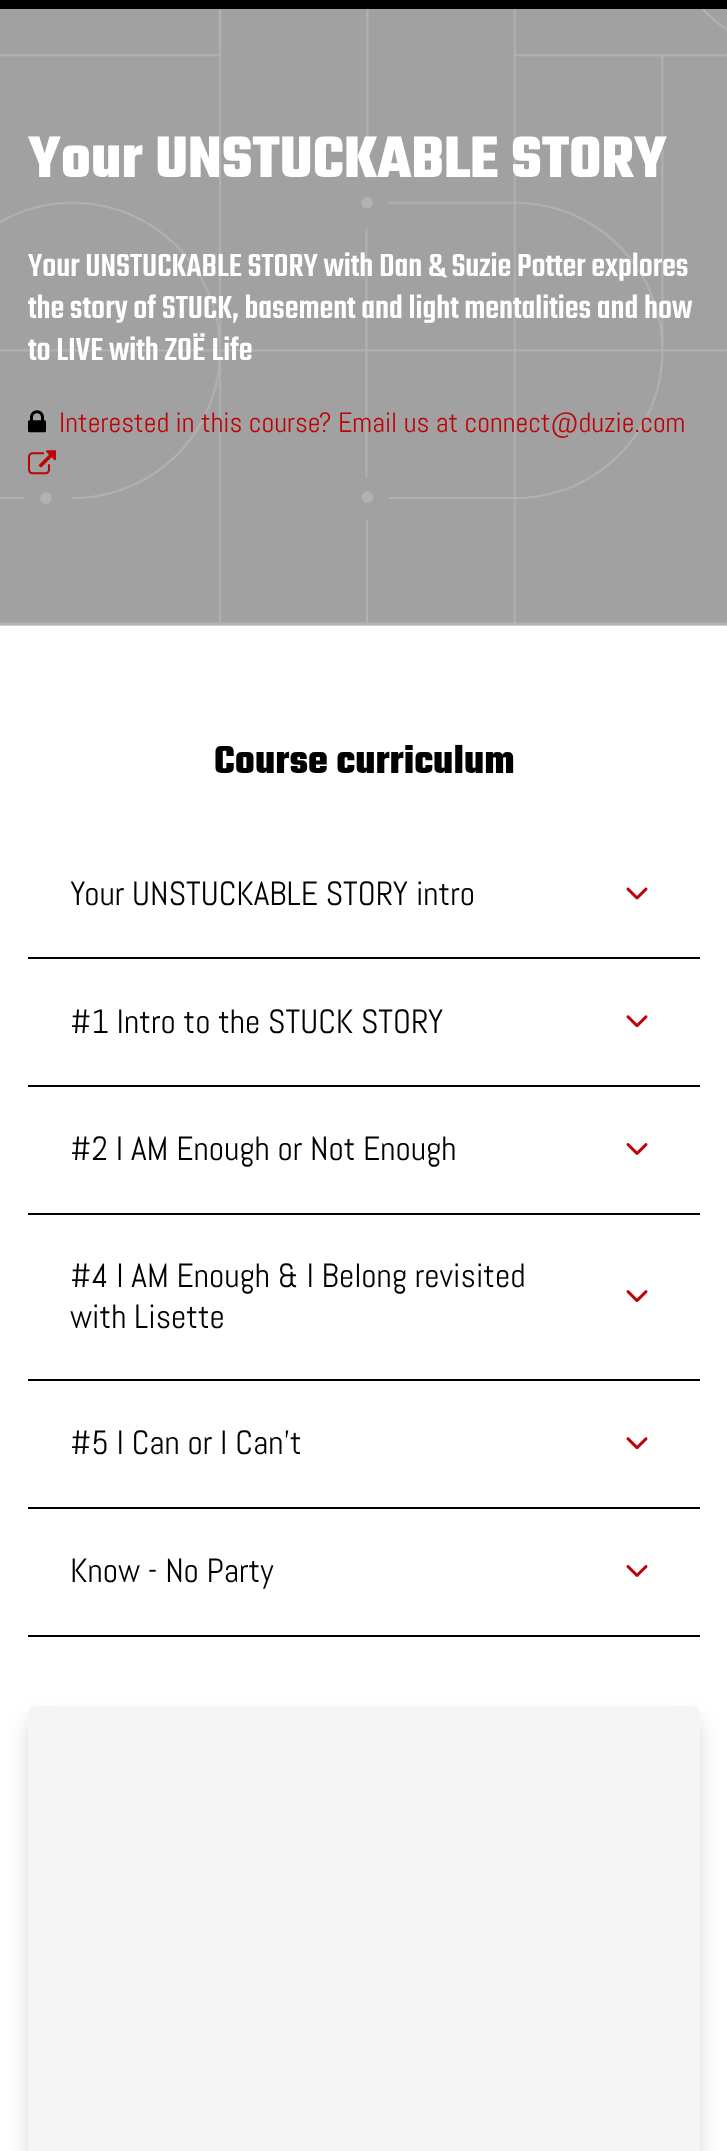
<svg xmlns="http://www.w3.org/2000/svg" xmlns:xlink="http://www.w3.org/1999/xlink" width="727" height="2151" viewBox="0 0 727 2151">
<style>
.cls-1{font:bold 63px Teko;fill:#ffffff}
.cls-2{font:500 35px Teko;fill:#ffffff}
.cls-3{font:28px Abel;fill:#be0307}
.cls-4{font:bold 42px Teko;fill:#000000}
.cls-5{font:33.6px Abel;fill:#000000}
</style>
<rect width="100%" height="100%" fill="#ffffff"/>
<rect fill="#000000" x="0" y="0" width="727" height="9"/>
<image xlink:href="image0.png" x="0" y="9" width="727" height="617"/>
<image xlink:href="image1.png" x="28" y="410" width="18" height="23"/>
<image xlink:href="image2.png" x="28" y="450" width="28" height="25"/>
<rect fill="#000000" x="28" y="957" width="672" height="2"/>
<image xlink:href="image3.png" x="626" y="887" width="22" height="13"/>
<rect fill="#000000" x="28" y="1085" width="672" height="2"/>
<image xlink:href="image4.png" x="626" y="1015" width="22" height="13"/>
<rect fill="#000000" x="28" y="1213" width="672" height="2"/>
<image xlink:href="image5.png" x="626" y="1143" width="22" height="12"/>
<rect fill="#000000" x="28" y="1379" width="672" height="2"/>
<image xlink:href="image6.png" x="626" y="1290" width="22" height="12"/>
<rect fill="#000000" x="28" y="1507" width="672" height="2"/>
<image xlink:href="image7.png" x="626" y="1437" width="22" height="13"/>
<rect fill="#000000" x="28" y="1635" width="672" height="2"/>
<image xlink:href="image8.png" x="626" y="1565" width="22" height="12"/>
<rect fill="#000000" fill-opacity="0.15" filter="blur(10.5px)" x="28" y="1720" width="672" height="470" rx="7"/>
<rect fill="#f5f5f5" x="28" y="1706" width="672" height="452" rx="7"/>
<text class="cls-1" x="28" y="177">Your UNSTUCKABLE STORY</text>
<text class="cls-2"><tspan x="28" y="276">Your UNSTUCKABLE STORY with Dan &amp; Suzie Potter explores</tspan><tspan x="28" y="318">the story of STUCK, basement and light mentalities and how</tspan><tspan x="28" y="360">to LIVE with ZOË Life</tspan></text>
<text class="cls-3" x="59" y="432">Interested in this course? Email us at connect@duzie.com</text>
<text class="cls-4" x="214" y="773">Course curriculum</text>
<text class="cls-5" x="70" y="905">Your UNSTUCKABLE STORY intro</text>
<text class="cls-5" x="70" y="1033">#1 Intro to the STUCK STORY</text>
<text class="cls-5" x="70" y="1160">#2 I AM Enough or Not Enough</text>
<text class="cls-5"><tspan x="70" y="1287">#4 I AM Enough &amp; I Belong revisited</tspan><tspan x="70" y="1328">with Lisette</tspan></text>
<text class="cls-5" x="70" y="1454">#5 I Can or I Can't</text>
<text class="cls-5" x="70" y="1582">Know - No Party</text>
</svg>
